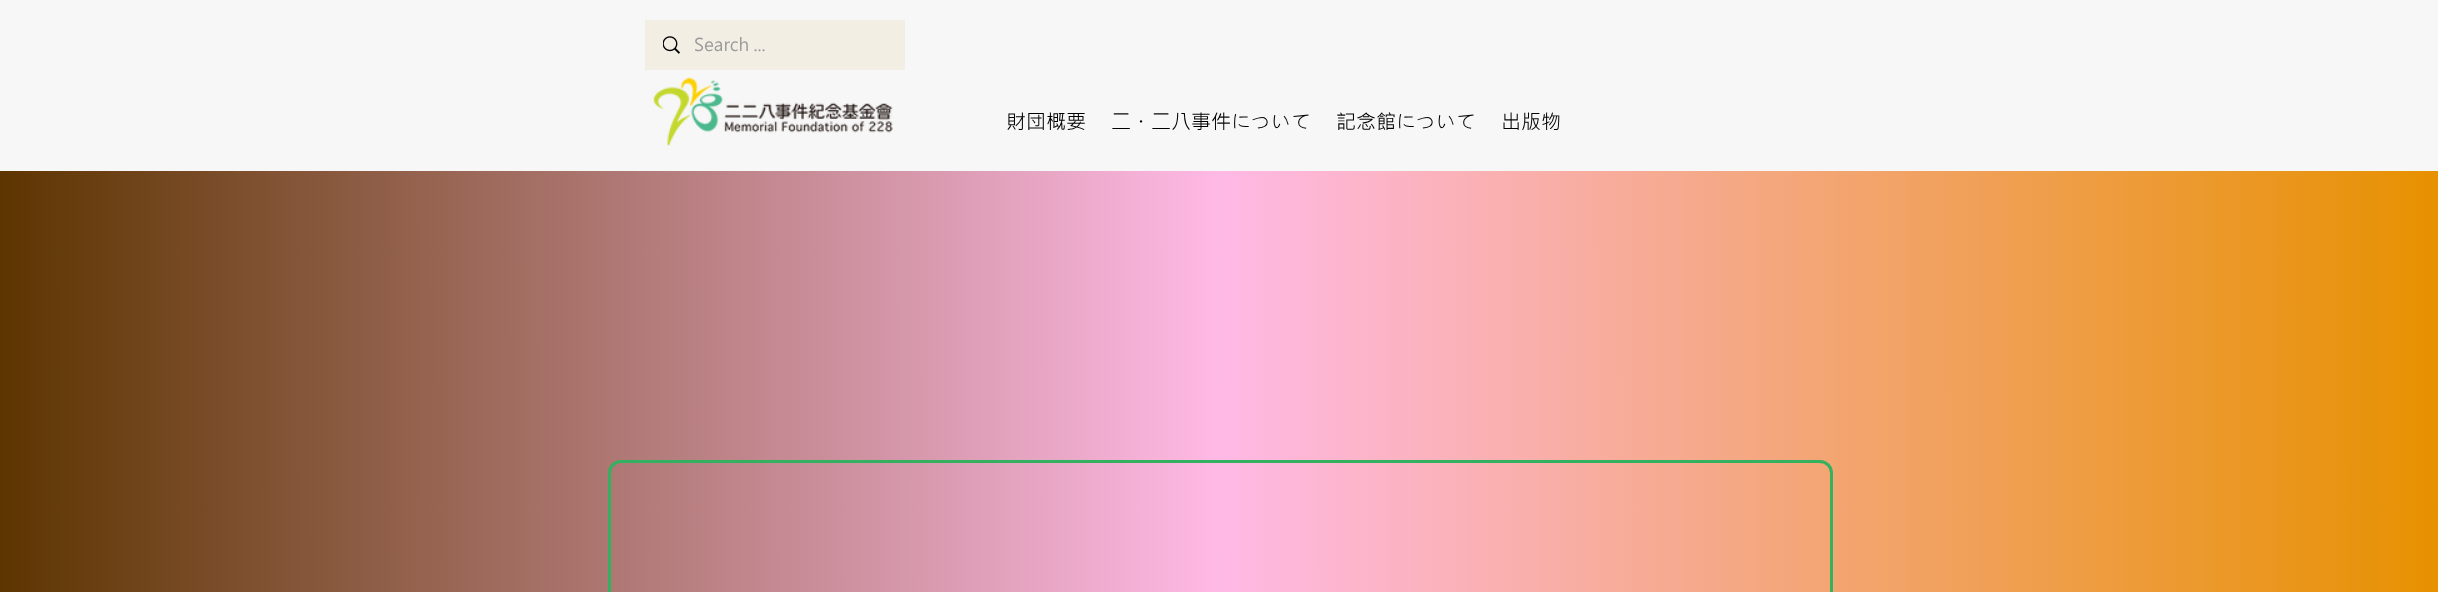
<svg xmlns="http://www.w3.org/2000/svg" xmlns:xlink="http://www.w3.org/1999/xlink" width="2438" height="592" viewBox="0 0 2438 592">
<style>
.cls-1{font:17.5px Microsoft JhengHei;fill:#999999}
.cls-2{font:20px Microsoft JhengHei;fill:#000000}
</style>
<defs>
<linearGradient id="g1" gradientUnits="userSpaceOnUse" x1="0" y1="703" x2="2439" y2="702"><stop offset="0" stop-color="#5d3500"/><stop offset="0.5" stop-color="#ffb9e5"/><stop offset="1" stop-color="#e79100"/></linearGradient>
</defs>
<rect width="100%" height="100%" fill="#ffffff"/>
<rect fill="#f7f7f7" x="0" y="0" width="2438" height="171"/>
<rect fill="#f2eee4" x="645" y="20" width="260" height="50"/>
<image xlink:href="image0.png" x="663" y="36" width="17" height="18"/>
<image xlink:href="image1.png" x="653" y="77" width="240" height="69"/>
<rect fill="url(#g1)" x="0" y="171" width="2438" height="421"/>
<rect fill="none" stroke="#33b160" stroke-width="3" x="609.5" y="461.5" width="1222" height="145" rx="11.5"/>
<text class="cls-1" x="694" y="51">Search ...</text>
<text class="cls-2" x="1006" y="129">財団概要</text>
<text class="cls-2" x="1111" y="129">二・二八事件について</text>
<text class="cls-2" x="1336" y="129">記念館について</text>
<text class="cls-2" x="1501" y="129">出版物</text>
</svg>
